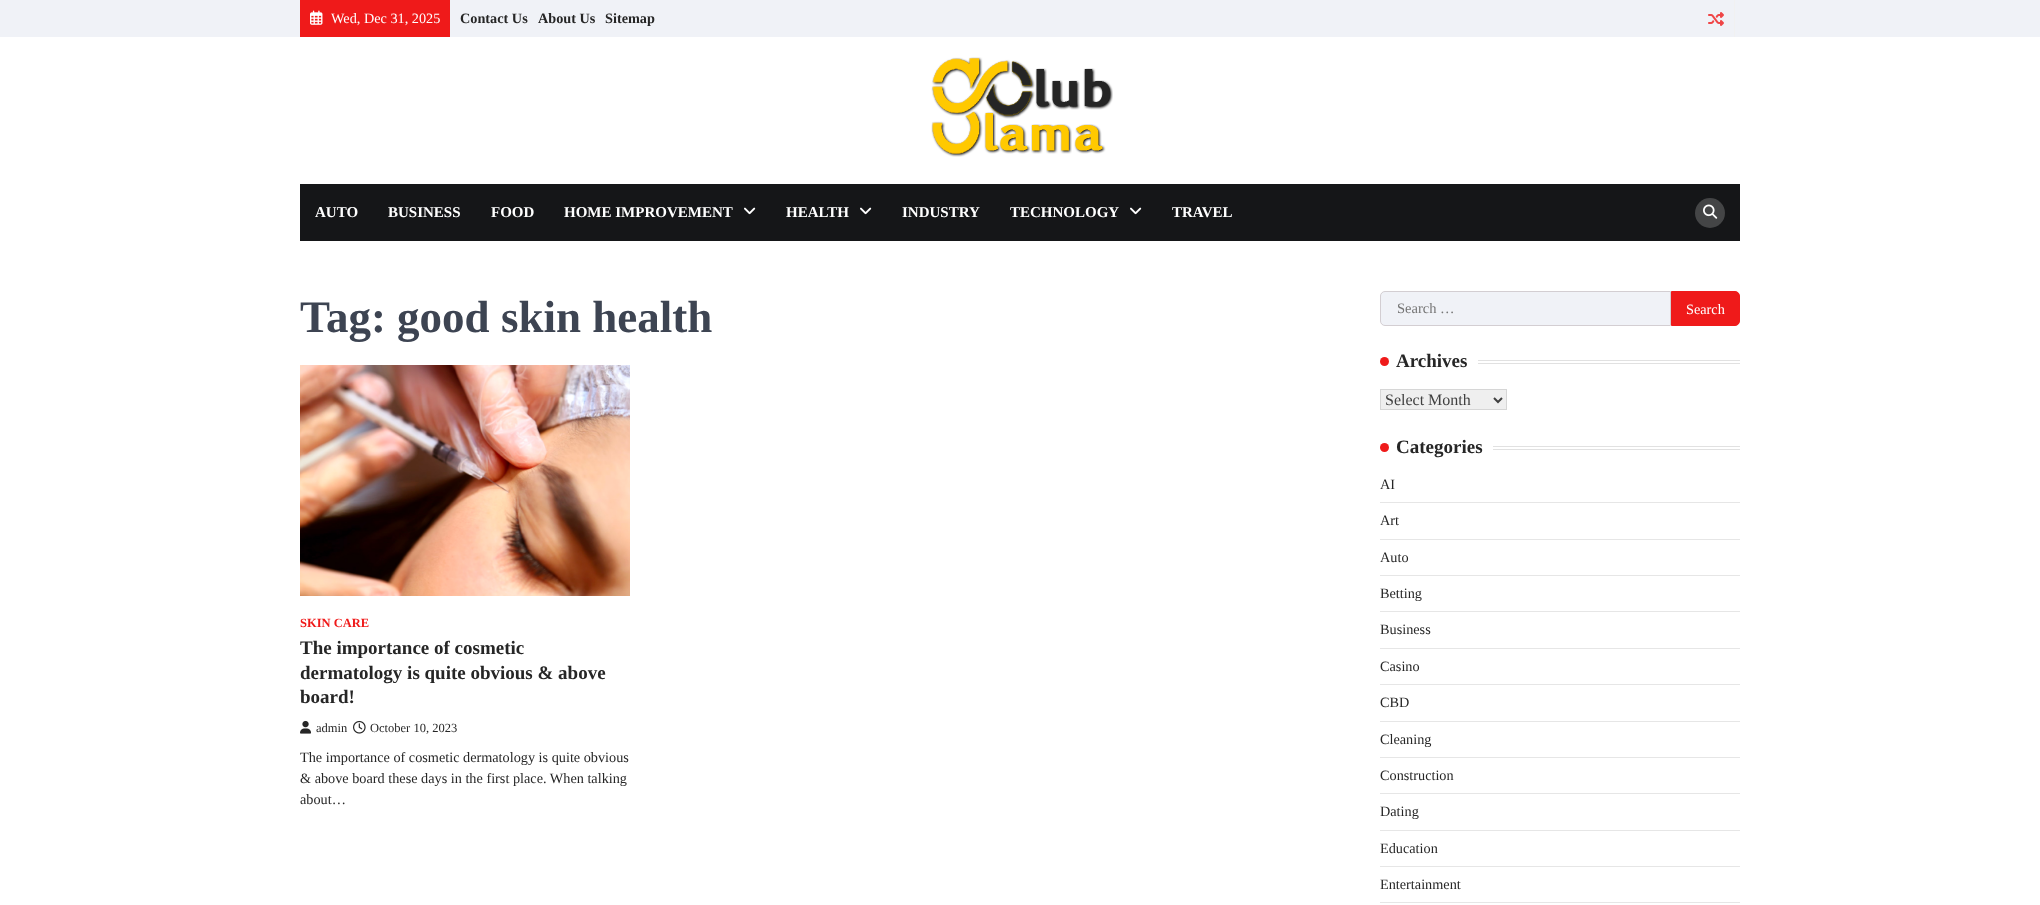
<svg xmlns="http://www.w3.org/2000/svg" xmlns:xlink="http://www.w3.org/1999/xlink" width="2040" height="905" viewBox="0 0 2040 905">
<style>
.cls-1{font:14.25px Liberation Serif;fill:#ffffff}
.cls-2{font:bold 14.25px Liberation Serif;fill:#262626}
.cls-3{font:bold 15px Liberation Serif;fill:#ffffff}
.cls-4{font:bold 45px Liberation Serif;fill:#3d4452}
.cls-5{font:bold 12.5px Liberation Serif;fill:#ef1a1a}
.cls-6{font:bold 19px Liberation Serif;fill:#262626}
.cls-7{font:12.5px Liberation Serif;fill:#262626}
.cls-8{font:14.25px Liberation Serif;fill:#262626}
.cls-9{font:14.5px Liberation Serif;fill:#757575}
.cls-10{font:16px Liberation Serif;fill:#404040}
</style>
<rect width="100%" height="100%" fill="#ffffff"/>
<rect fill="#f0f2f7" x="0" y="0" width="2040" height="37"/>
<rect fill="#ef1a1a" x="300" y="0" width="150" height="37"/>
<image xlink:href="image0.png" x="310" y="10" width="13" height="15"/>
<rect fill="#f1f1f1" x="1734" y="0" width="1" height="37"/>
<image xlink:href="image1.png" x="1708" y="12" width="16" height="14"/>
<image xlink:href="image2.png" x="931" y="57" width="182" height="100"/>
<rect fill="#151618" x="300" y="184" width="1440" height="57"/>
<image xlink:href="image3.png" x="744" y="207" width="12" height="8"/>
<image xlink:href="image3.png" x="860" y="207" width="12" height="8"/>
<image xlink:href="image3.png" x="1130" y="207" width="12" height="8"/>
<circle fill="#444546" cx="1710" cy="213" r="15"/>
<image xlink:href="image4.png" x="1703" y="204" width="15" height="15"/>
<image xlink:href="image5.png" x="300" y="365" width="330" height="231"/>
<image xlink:href="image6.png" x="300" y="720" width="11" height="14"/>
<image xlink:href="image7.png" x="353" y="720" width="13" height="14"/>
<path fill="#f0f2f7" stroke="#d3ced2" d="M1385 291.5H1670.5V325.5H1385C1382.5 325.5 1380.5 323.5 1380.5 321V296C1380.5 293.5 1382.5 291.5 1385 291.5Z"/>
<path fill="#ef1a1a" stroke="#ef1a1a" d="M1671.5 291.5H1735C1737.5 291.5 1739.5 293.5 1739.5 296V321C1739.5 323.5 1737.5 325.5 1735 325.5H1671.5Z"/>
<circle fill="#ef1a1a" cx="1384.5" cy="361.5" r="4.5"/>
<rect fill="#e1e1e1" x="1478" y="360" width="262" height="1"/>
<rect fill="#e1e1e1" x="1478" y="363" width="262" height="1"/>
<rect fill="#efefef" stroke="#d6d6d6" x="1380.5" y="389.5" width="126" height="20"/>
<path fill="none" stroke="#404040" stroke-width="2" d="M1494 398L1498 402L1502 398"/>
<circle fill="#ef1a1a" cx="1384.5" cy="447.5" r="4.5"/>
<rect fill="#e1e1e1" x="1493" y="446" width="247" height="1"/>
<rect fill="#e1e1e1" x="1493" y="449" width="247" height="1"/>
<rect fill="#e6e6e6" x="1380" y="502" width="360" height="1"/>
<rect fill="#e6e6e6" x="1380" y="539" width="360" height="1"/>
<rect fill="#e6e6e6" x="1380" y="575" width="360" height="1"/>
<rect fill="#e6e6e6" x="1380" y="611" width="360" height="1"/>
<rect fill="#e6e6e6" x="1380" y="648" width="360" height="1"/>
<rect fill="#e6e6e6" x="1380" y="684" width="360" height="1"/>
<rect fill="#e6e6e6" x="1380" y="721" width="360" height="1"/>
<rect fill="#e6e6e6" x="1380" y="757" width="360" height="1"/>
<rect fill="#e6e6e6" x="1380" y="793" width="360" height="1"/>
<rect fill="#e6e6e6" x="1380" y="830" width="360" height="1"/>
<rect fill="#e6e6e6" x="1380" y="866" width="360" height="1"/>
<rect fill="#e6e6e6" x="1380" y="902" width="360" height="1"/>
<text class="cls-1" x="331" y="23">Wed, Dec 31, 2025</text>
<text class="cls-2" x="460" y="23">Contact Us</text>
<text class="cls-2" x="538" y="23">About Us</text>
<text class="cls-2" x="605" y="23">Sitemap</text>
<text class="cls-3" x="315" y="217">AUTO</text>
<text class="cls-3" x="388" y="217">BUSINESS</text>
<text class="cls-3" x="491" y="217">FOOD</text>
<text class="cls-3" x="564" y="217">HOME IMPROVEMENT</text>
<text class="cls-3" x="786" y="217">HEALTH</text>
<text class="cls-3" x="902" y="217">INDUSTRY</text>
<text class="cls-3" x="1010" y="217">TECHNOLOGY</text>
<text class="cls-3" x="1172" y="217">TRAVEL</text>
<text class="cls-4" x="300" y="332">Tag: good skin health</text>
<text class="cls-5" x="300" y="627">SKIN CARE</text>
<text class="cls-6"><tspan x="300" y="654">The importance of cosmetic</tspan><tspan x="300" y="679">dermatology is quite obvious &amp; above</tspan><tspan x="300" y="703">board!</tspan></text>
<text class="cls-7" x="316" y="732">admin</text>
<text class="cls-7" x="370" y="732">October 10, 2023</text>
<text class="cls-8"><tspan x="300" y="762">The importance of cosmetic dermatology is quite obvious</tspan><tspan x="300" y="783">&amp; above board these days in the first place. When talking</tspan><tspan x="300" y="804">about…</tspan></text>
<text class="cls-9" x="1397" y="313">Search …</text>
<text class="cls-1" x="1686" y="314">Search</text>
<text class="cls-6" x="1396" y="367">Archives</text>
<text class="cls-10" x="1385" y="405">Select Month</text>
<text class="cls-6" x="1396" y="453">Categories</text>
<text class="cls-8" x="1380" y="489">AI</text>
<text class="cls-8" x="1380" y="525">Art</text>
<text class="cls-8" x="1380" y="562">Auto</text>
<text class="cls-8" x="1380" y="598">Betting</text>
<text class="cls-8" x="1380" y="634">Business</text>
<text class="cls-8" x="1380" y="671">Casino</text>
<text class="cls-8" x="1380" y="707">CBD</text>
<text class="cls-8" x="1380" y="744">Cleaning</text>
<text class="cls-8" x="1380" y="780">Construction</text>
<text class="cls-8" x="1380" y="816">Dating</text>
<text class="cls-8" x="1380" y="853">Education</text>
<text class="cls-8" x="1380" y="889">Entertainment</text>
</svg>
